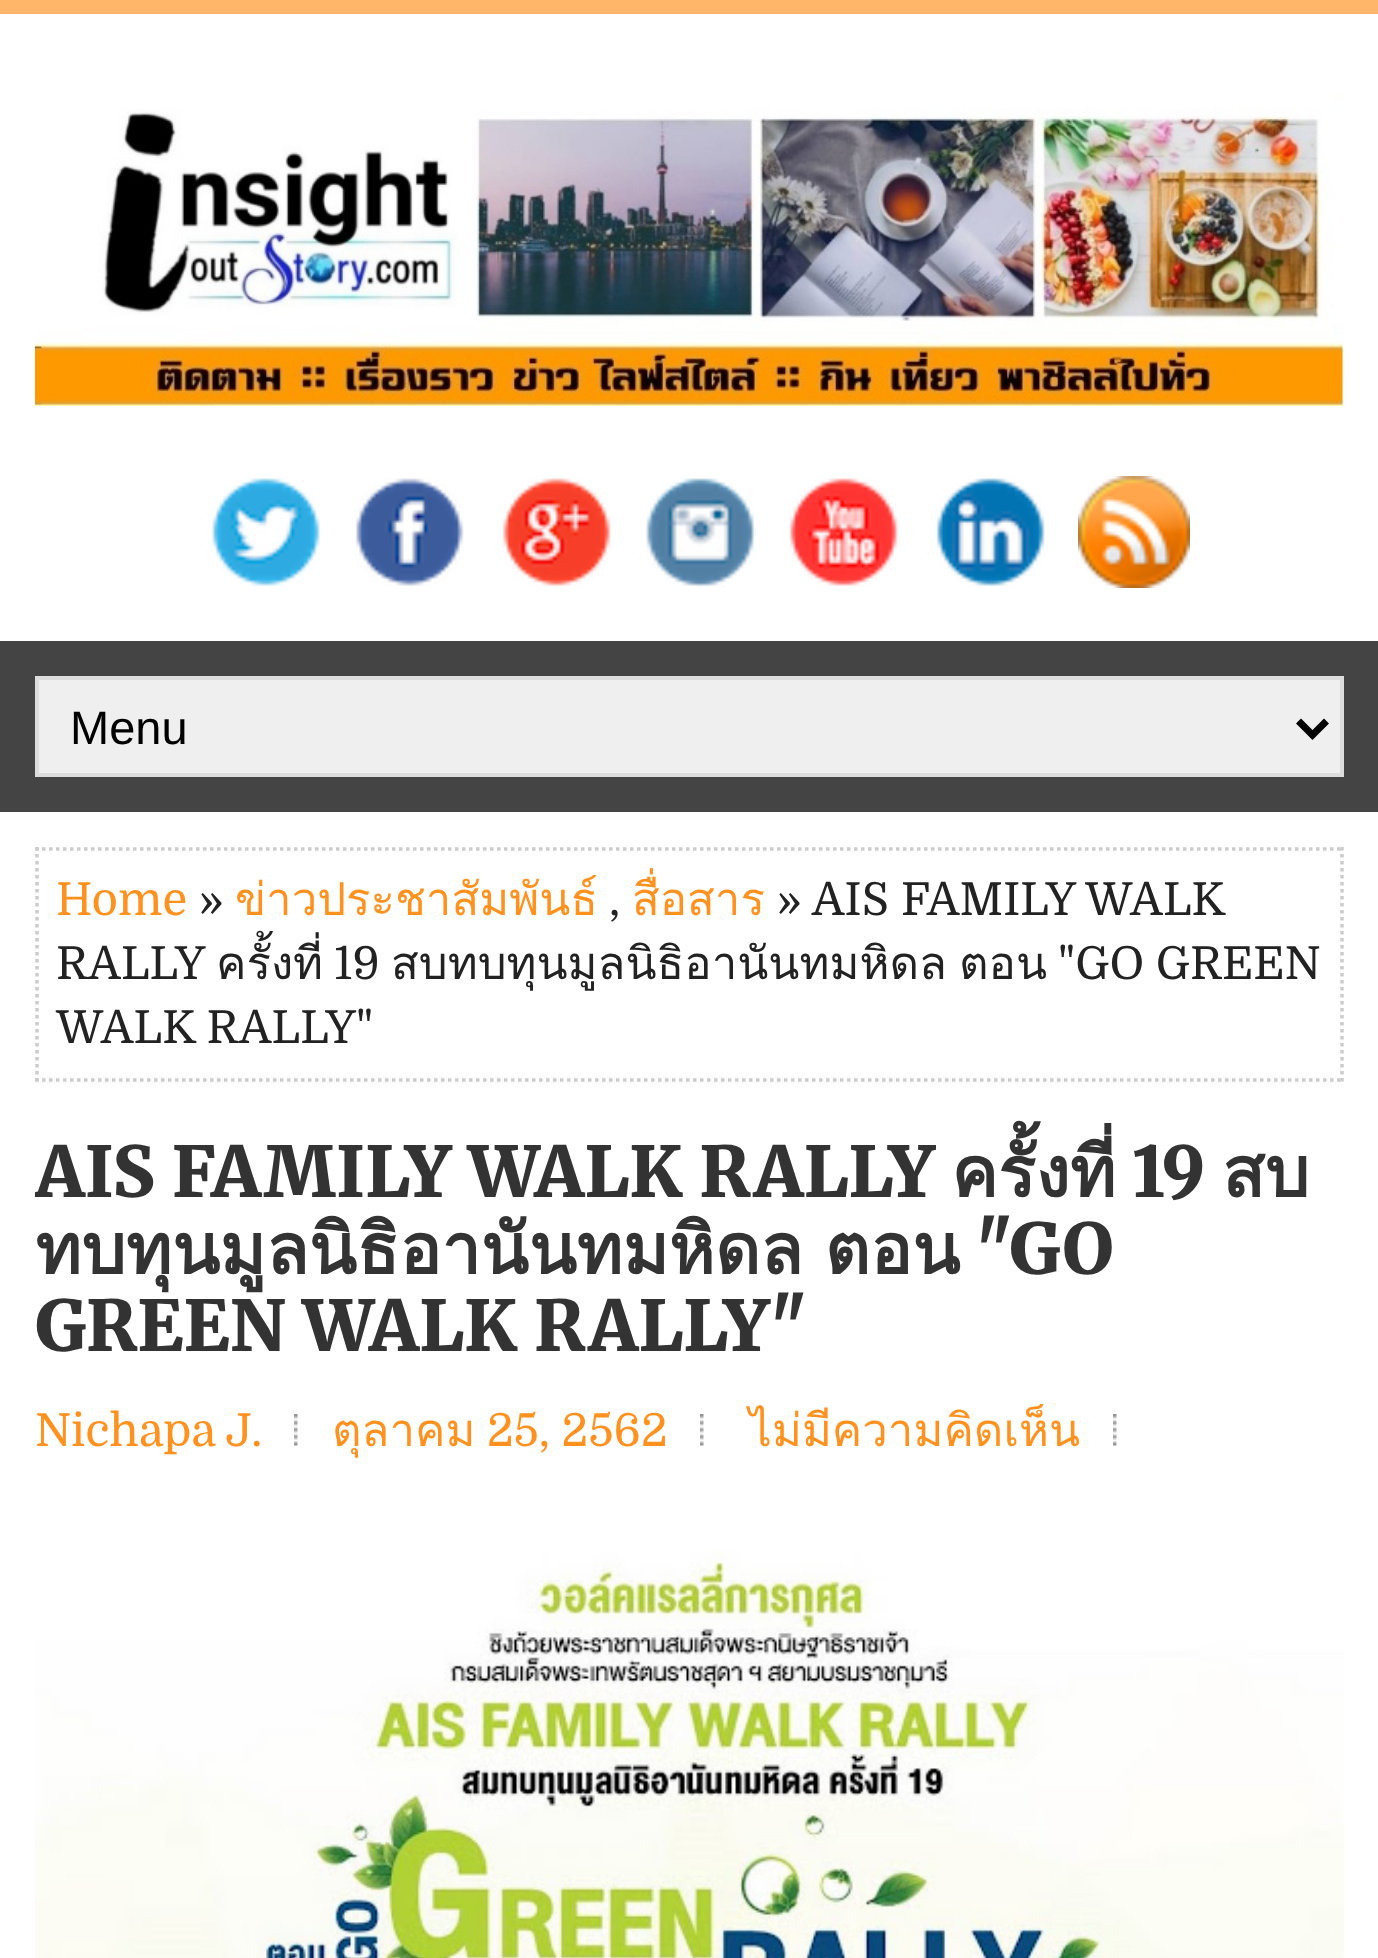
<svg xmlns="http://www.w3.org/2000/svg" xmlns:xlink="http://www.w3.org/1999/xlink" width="1378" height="1958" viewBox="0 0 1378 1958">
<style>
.cls-1{font:47px Liberation Sans;fill:#000000}
.cls-2{font:45.5px Domine;fill:#ff921f}
.cls-3{font:45.5px Domine;fill:#222222}
.cls-4{font:45.5px Loma;fill:#ff921f}
.cls-5{font:45.5px Loma;fill:#222222}
.cls-6{font:900 70px Merriweather;fill:#333333}
.cls-7{font:bold 70px Loma;fill:#333333}
</style>
<defs>
<clipPath id="clip1"><rect x="35" y="847" width="1309" height="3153"/></clipPath>
</defs>
<rect width="100%" height="100%" fill="#444444"/>
<rect fill="#ffffff" x="0" y="14" width="1378" height="627"/>
<rect fill="#ffb669" x="0" y="0" width="1378" height="14"/>
<image xlink:href="image0.png" x="35" y="93" width="1309" height="313"/>
<image xlink:href="image1.png" x="212" y="478" width="108" height="108"/>
<image xlink:href="image2.png" x="355" y="478" width="109" height="108"/>
<image xlink:href="image3.png" x="502" y="478" width="109" height="108"/>
<image xlink:href="image4.png" x="646" y="478" width="110" height="110"/>
<image xlink:href="image5.png" x="789" y="478" width="109" height="108"/>
<image xlink:href="image6.png" x="936" y="478" width="109" height="108"/>
<image xlink:href="image7.png" x="1078" y="476" width="112" height="112"/>
<rect fill="#efefef" stroke="#dddddd" stroke-width="4" x="37" y="678" width="1305" height="97"/>
<path fill="none" stroke="#000000" stroke-width="7" d="M1298.5 721L1312.5 735L1326.5 721"/>
<rect fill="#ffffff" x="0" y="812" width="1378" height="1146"/>
<path fill="none" stroke="#cccccc" stroke-width="3.5" stroke-dasharray="3.5 3.5" d="M35 849H1344"/>
<path fill="none" stroke="#cccccc" stroke-width="3.5" stroke-dasharray="3.5 3.5" d="M1342 847V1081.5"/>
<path fill="none" stroke="#cccccc" stroke-width="3.5" stroke-dasharray="3.5 3.5" d="M35 1080H1344"/>
<path fill="none" stroke="#cccccc" stroke-width="3.5" stroke-dasharray="3.5 3.5" d="M37 847V1081.5"/>
<image xlink:href="image8.png" x="294" y="1414" width="4" height="32"/>
<image xlink:href="image8.png" x="700" y="1414" width="4" height="32"/>
<image xlink:href="image8.png" x="1113" y="1414" width="4" height="32"/>
<image xlink:href="image9.png" x="35" y="1550" width="1309" height="408"/>
<text class="cls-1" x="70" y="744">Menu</text>
<text class="cls-2" x="56" y="915">Home</text>
<text class="cls-3" x="199" y="915">»</text>
<text class="cls-4" x="235" y="915">ข่าวประชาสัมพันธ์</text>
<text class="cls-3" x="777" y="915" word-spacing="0.5">» AIS FAMILY WALK</text>
<text class="cls-3" x="609" y="915">,</text>
<text class="cls-4" x="632" y="915">สื่อสาร</text>
<text class="cls-3" x="56" y="979">RALLY</text>
<text class="cls-5" x="216" y="979">ครั้งที่</text>
<text class="cls-3" x="334" y="979">19</text>
<text class="cls-5" x="391" y="979">สบทบทุนมูลนิธิอานันทมหิดล</text>
<text class="cls-5" x="959" y="979">ตอน</text>
<text class="cls-3" x="1058" y="979">"GO GREEN</text>
<text class="cls-3" x="56" y="1043">WALK RALLY"</text>
<g clip-path="url(#clip1)">
<text class="cls-6" x="35" y="1197">AIS FAMILY WALK RALLY</text>
</g>
<text class="cls-7" x="951" y="1197">ครั้งที่</text>
<text class="cls-6" x="1132" y="1197">19</text>
<text class="cls-7" x="1222" y="1197">สบ</text>
<text class="cls-7" x="35" y="1274" word-spacing="-2">ทบทุนมูลนิธิอานันทมหิดล ตอน</text>
<text class="cls-6" x="975" y="1274">"GO</text>
<text class="cls-6" x="35" y="1351">GREEN WALK RALLY"</text>
<text class="cls-2" x="35" y="1446">Nichapa J.</text>
<text class="cls-4" x="332" y="1446">ตุลาคม</text>
<text class="cls-2" x="487" y="1446">25, 2562</text>
<text class="cls-4" x="749" y="1446">ไม่มีความคิดเห็น</text>
</svg>
